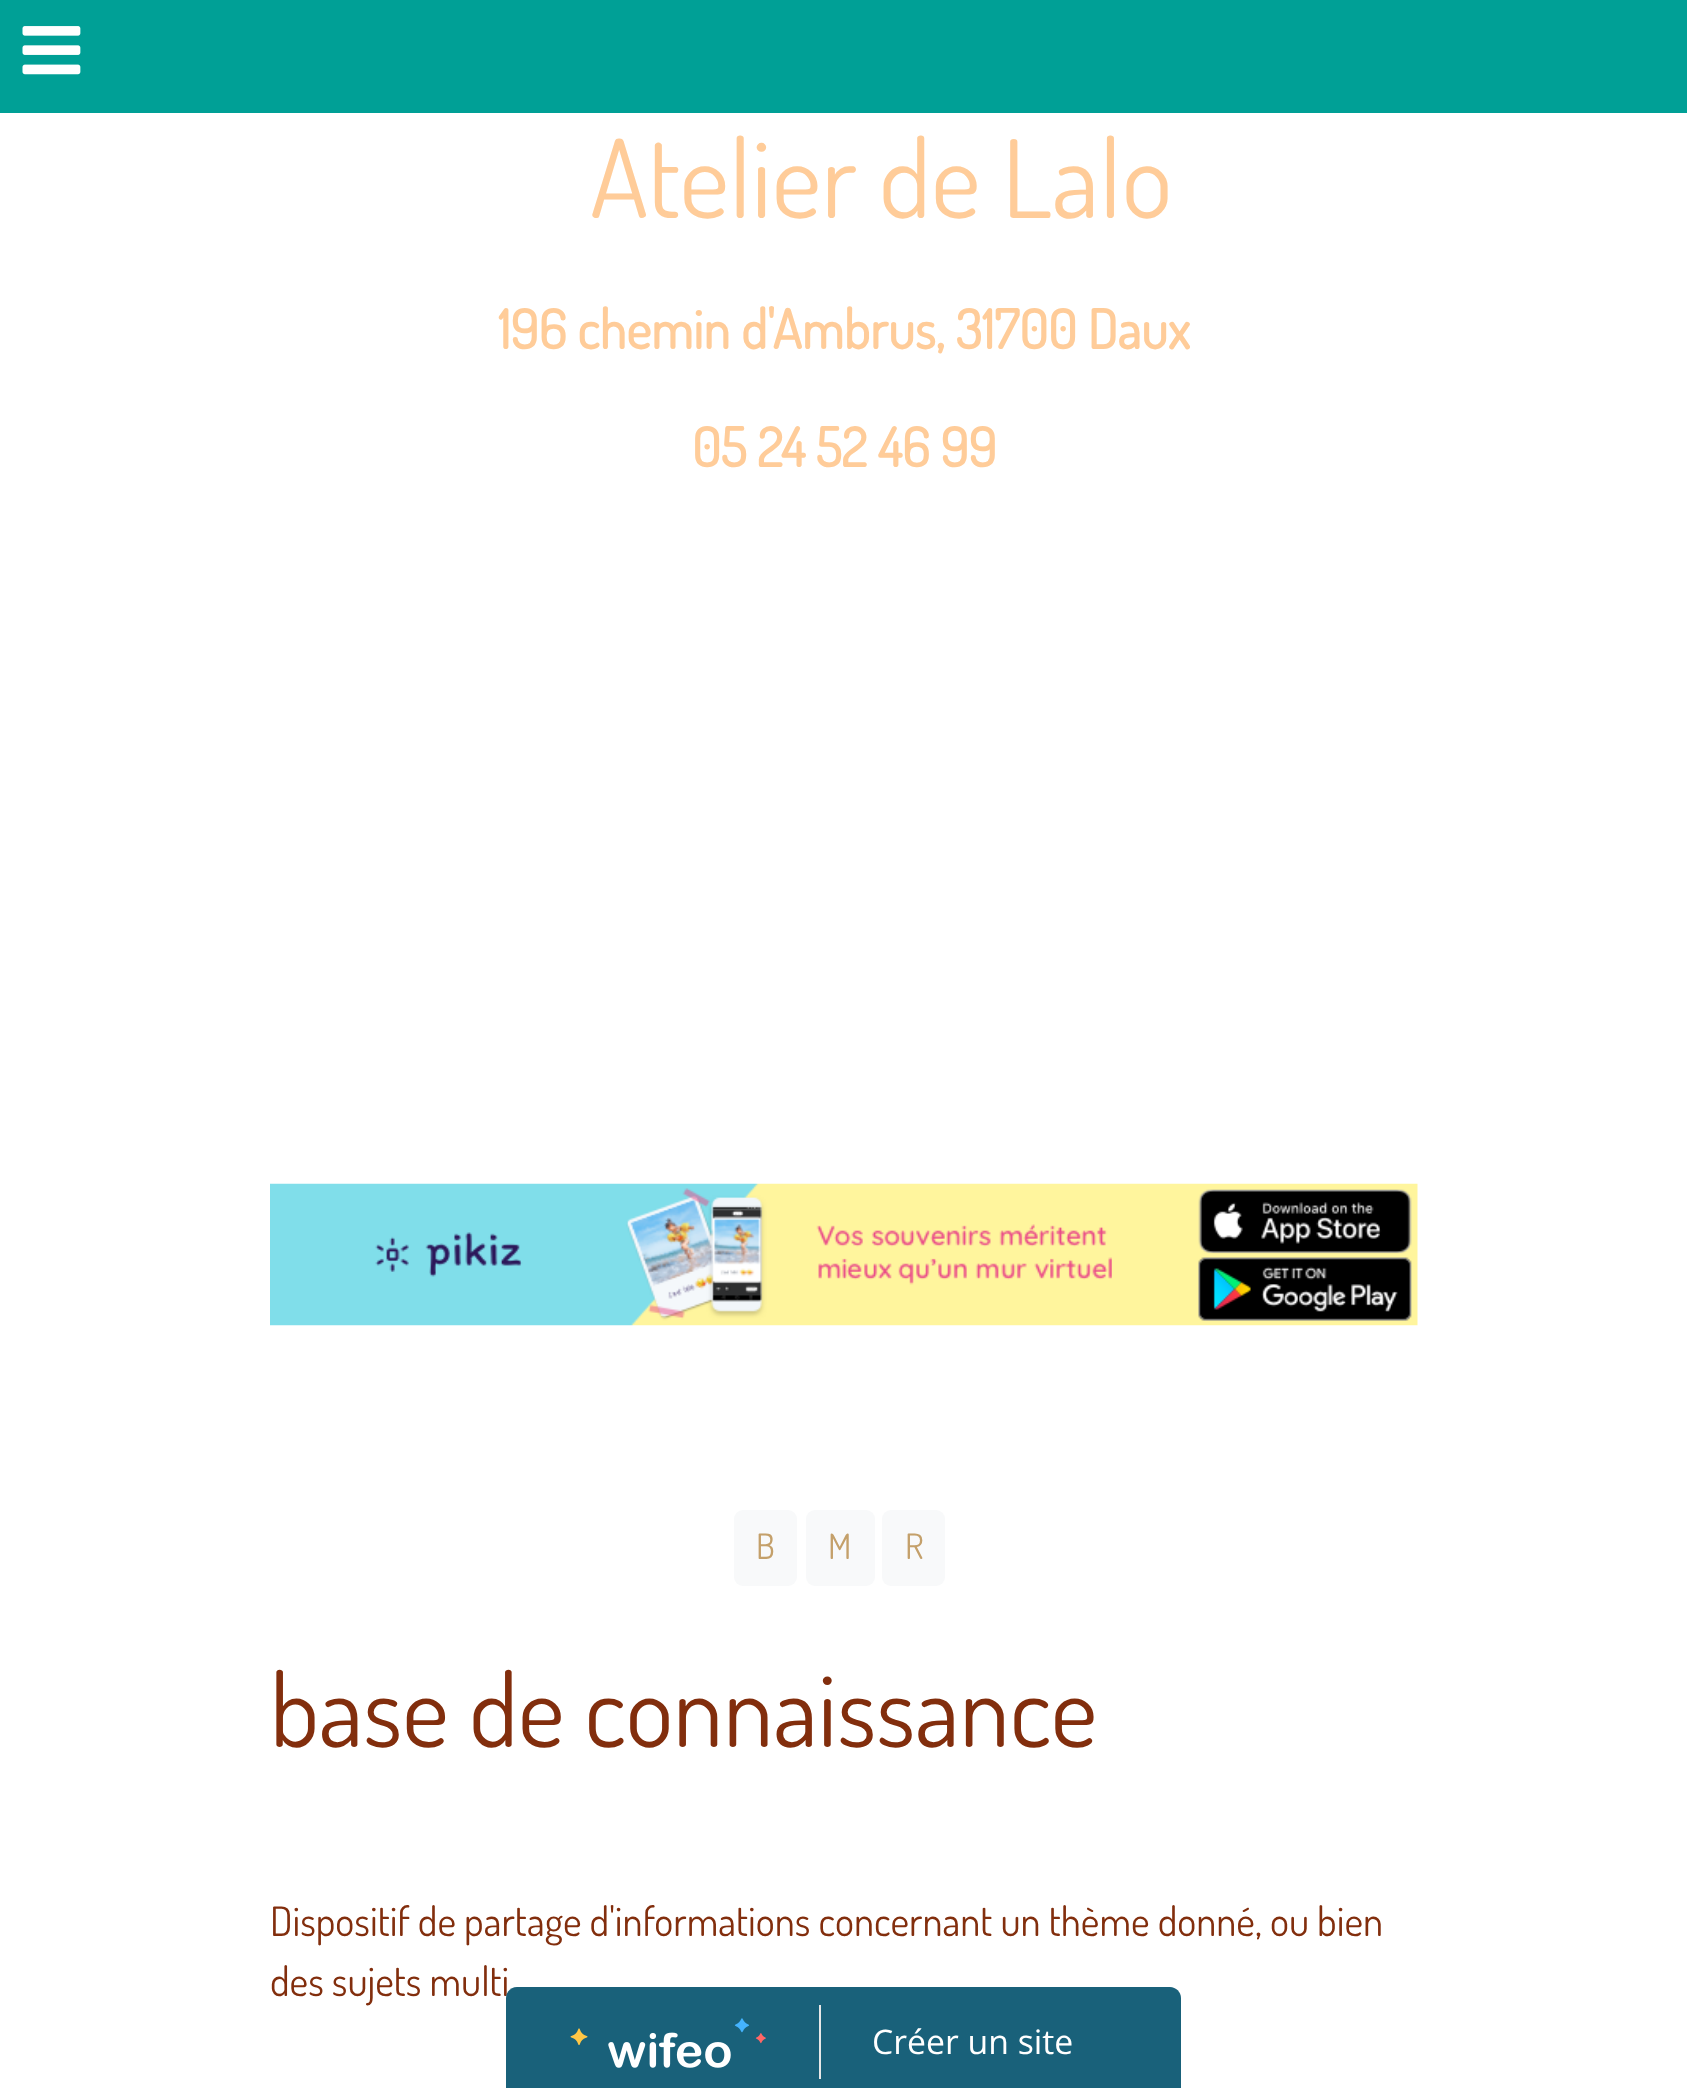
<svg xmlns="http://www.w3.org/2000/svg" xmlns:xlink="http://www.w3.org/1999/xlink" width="1687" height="2088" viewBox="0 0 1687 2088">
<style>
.cls-1{font:108px Dosis;fill:#ffcc99}
.cls-2{font:bold 54px Dosis;fill:#ffcc99}
.cls-3{font:35px Dosis;fill:#c4a06a}
.cls-4{font:101.25px Dosis;fill:#822e0d}
.cls-5{font:40.5px Dosis;fill:#822e0d}
.cls-6{font:33.75px Open Sans;fill:#ffffff}
</style>
<rect width="100%" height="100%" fill="#ffffff"/>
<rect fill="#00a096" x="0" y="0" width="1687" height="113"/>
<image xlink:href="image0.png" x="22" y="26" width="59" height="49"/>
<image xlink:href="image1.png" x="270" y="1183" width="1148" height="143"/>
<rect fill="#f8f9fa" x="734" y="1510" width="63" height="76" rx="9"/>
<rect fill="#f8f9fa" x="806" y="1510" width="69" height="76" rx="9"/>
<rect fill="#f8f9fa" x="882" y="1510" width="63" height="76" rx="9"/>
<text class="cls-1" x="590" y="218">Atelier de Lalo</text>
<text class="cls-2" x="498" y="349">196 chemin d'Ambrus, 31700 Daux</text>
<text class="cls-2" x="692" y="467">05 24 52 46 99</text>
<text class="cls-3" x="756" y="1559">B</text>
<text class="cls-3" x="828" y="1559">M</text>
<text class="cls-3" x="905" y="1559">R</text>
<text class="cls-4" x="270" y="1747">base de connaissance</text>
<text class="cls-5"><tspan x="270" y="1936">Dispositif de partage d'informations concernant un thème donné, ou bien</tspan><tspan x="270" y="1996">des sujets multi</tspan></text>
<path fill="#00506b" fill-opacity="0.9" d="M517 1987H1170C1176 1987 1181 1992 1181 1998V2088H506V1998C506 1992 511 1987 517 1987Z"/>
<rect fill="#e7e7e7" x="819" y="2005" width="2" height="74"/>
<image xlink:href="image2.png" x="570" y="2018" width="196" height="50"/>
<text class="cls-6" x="872" y="2054">Créer un site</text>
</svg>
